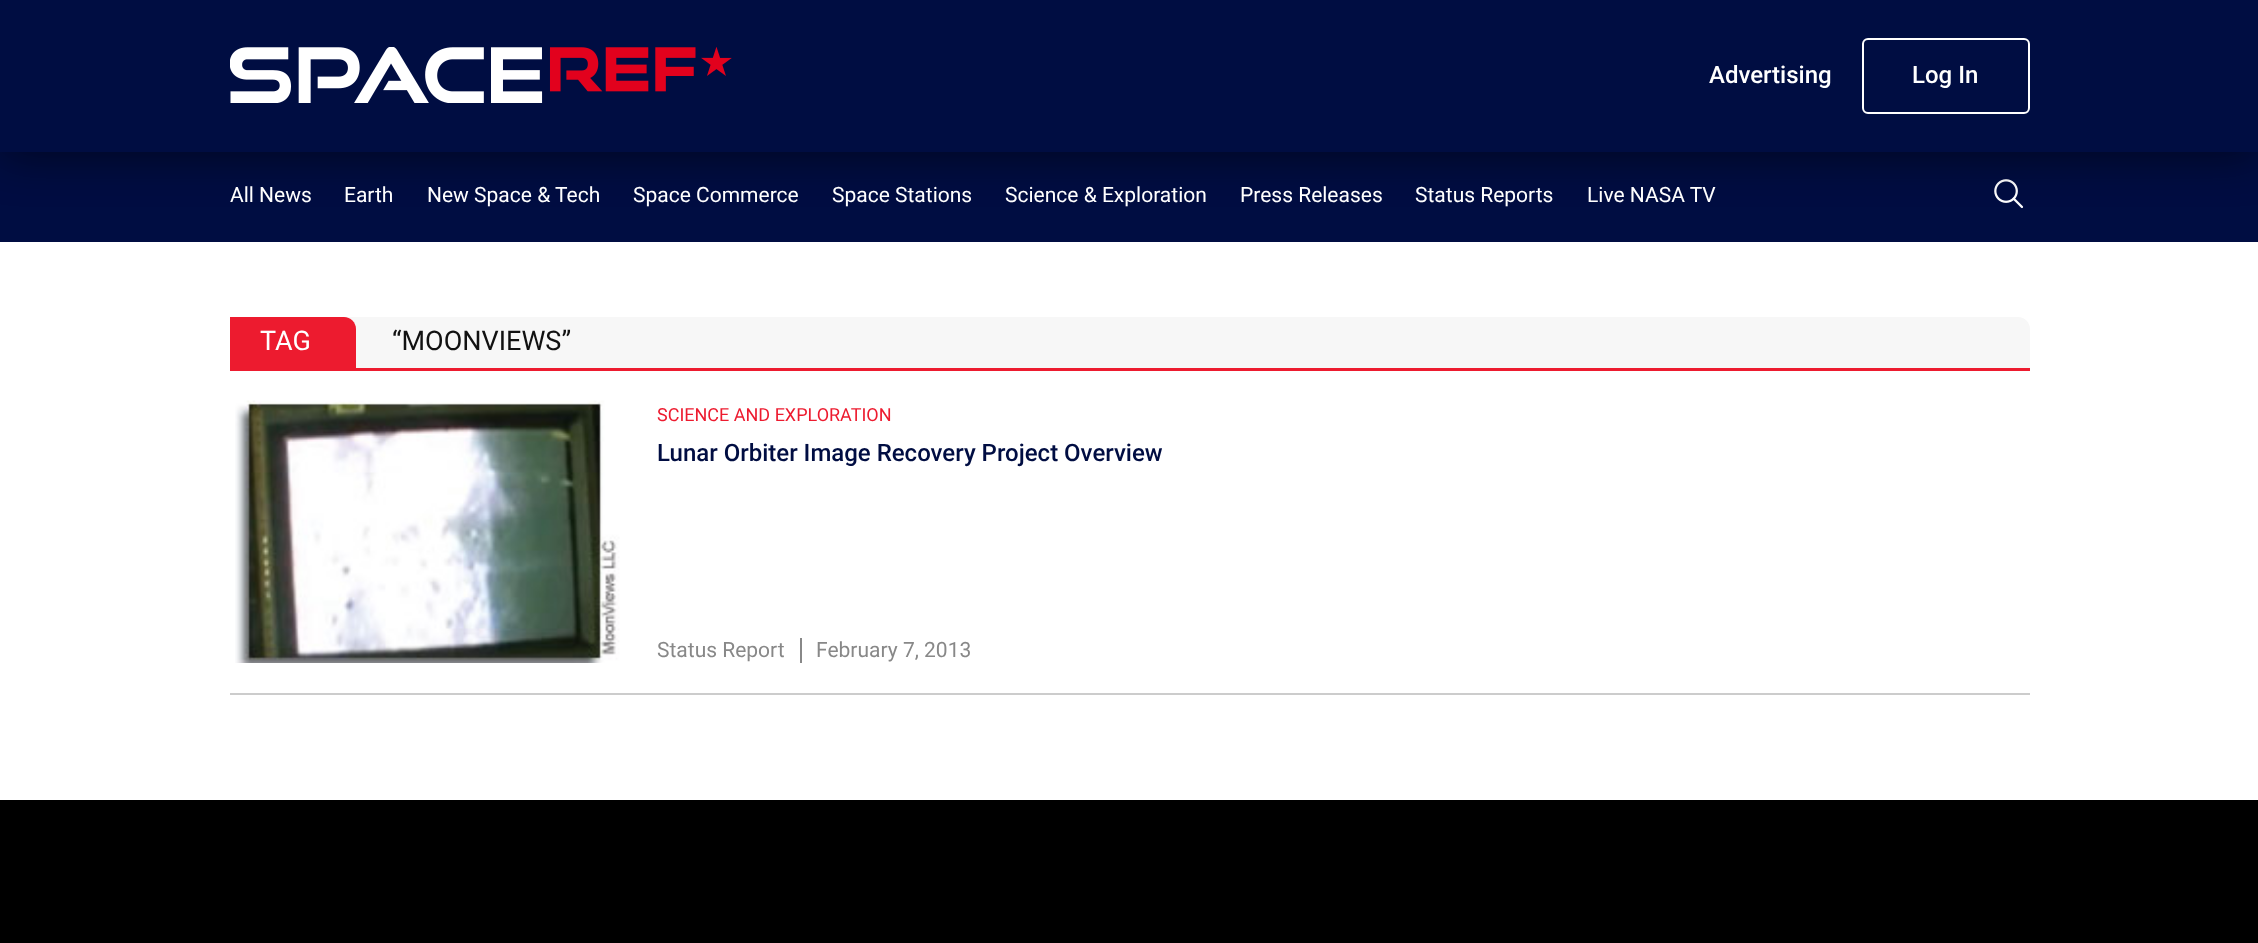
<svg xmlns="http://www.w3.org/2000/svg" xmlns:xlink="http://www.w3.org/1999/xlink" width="2258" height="943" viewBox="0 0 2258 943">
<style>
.cls-1{font:500 24px Roboto;fill:#ffffff}
.cls-2{font:21px Roboto;fill:#ffffff}
.cls-3{font:27px Roboto;fill:#ffffff}
.cls-4{font:27px Roboto;fill:#111111}
.cls-5{font:18px Roboto;fill:#ed1b2f}
.cls-6{font:500 24px Roboto;fill:#000d42}
.cls-7{font:21px Roboto;fill:#888888}
</style>
<defs>
<clipPath id="clip1"><path d="M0 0H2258V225H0ZM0 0H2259V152H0Z" clip-rule="evenodd"/></clipPath>
</defs>
<rect width="100%" height="100%" fill="#ffffff"/>
<rect fill="#000d42" x="0" y="0" width="2258" height="242"/>
<image xlink:href="image1.png" x="1994" y="179" width="30" height="30"/>
<g clip-path="url(#clip1)">
<rect fill="#000000" fill-opacity="0.51" filter="blur(22.5px)" x="0" y="5" width="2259" height="151"/>
</g>
<image xlink:href="image0.png" x="230" y="47" width="502" height="56"/>
<rect fill="none" stroke="#ffffff" stroke-width="2" x="1863" y="39" width="166" height="74" rx="5"/>
<path fill="#f7f7f7" d="M242 317H2018C2024.5 317 2030 322.5 2030 329V371H230V329C230 322.5 235.5 317 242 317Z"/>
<rect fill="#ed1b2f" x="230" y="368" width="1800" height="3"/>
<path fill="#ed1b2f" d="M230 317H344C350.5 317 356 322.5 356 329V368H230Z"/>
<rect fill="#cccccc" x="230" y="693" width="1800" height="2"/>
<image xlink:href="image2.png" x="235" y="400" width="385" height="263"/>
<rect fill="#888888" x="800" y="638" width="2" height="25"/>
<rect fill="#000000" x="0" y="800" width="2258" height="143"/>
<text class="cls-1" x="1709" y="83">Advertising</text>
<text class="cls-1" x="1912" y="83">Log In</text>
<text class="cls-2" x="230" y="202">All News</text>
<text class="cls-2" x="344" y="202">Earth</text>
<text class="cls-2" x="427" y="202">New Space &amp; Tech</text>
<text class="cls-2" x="633" y="202">Space Commerce</text>
<text class="cls-2" x="832" y="202">Space Stations</text>
<text class="cls-2" x="1005" y="202">Science &amp; Exploration</text>
<text class="cls-2" x="1240" y="202">Press Releases</text>
<text class="cls-2" x="1415" y="202">Status Reports</text>
<text class="cls-2" x="1587" y="202">Live NASA TV</text>
<text class="cls-3" x="260" y="350">TAG</text>
<text class="cls-4" x="392" y="350">“MOONVIEWS”</text>
<text class="cls-5" x="657" y="421">SCIENCE AND EXPLORATION</text>
<text class="cls-6" x="657" y="461">Lunar Orbiter Image Recovery Project Overview</text>
<text class="cls-7" x="657" y="657">Status Report</text>
<text class="cls-7" x="816" y="657">February 7, 2013</text>
</svg>
